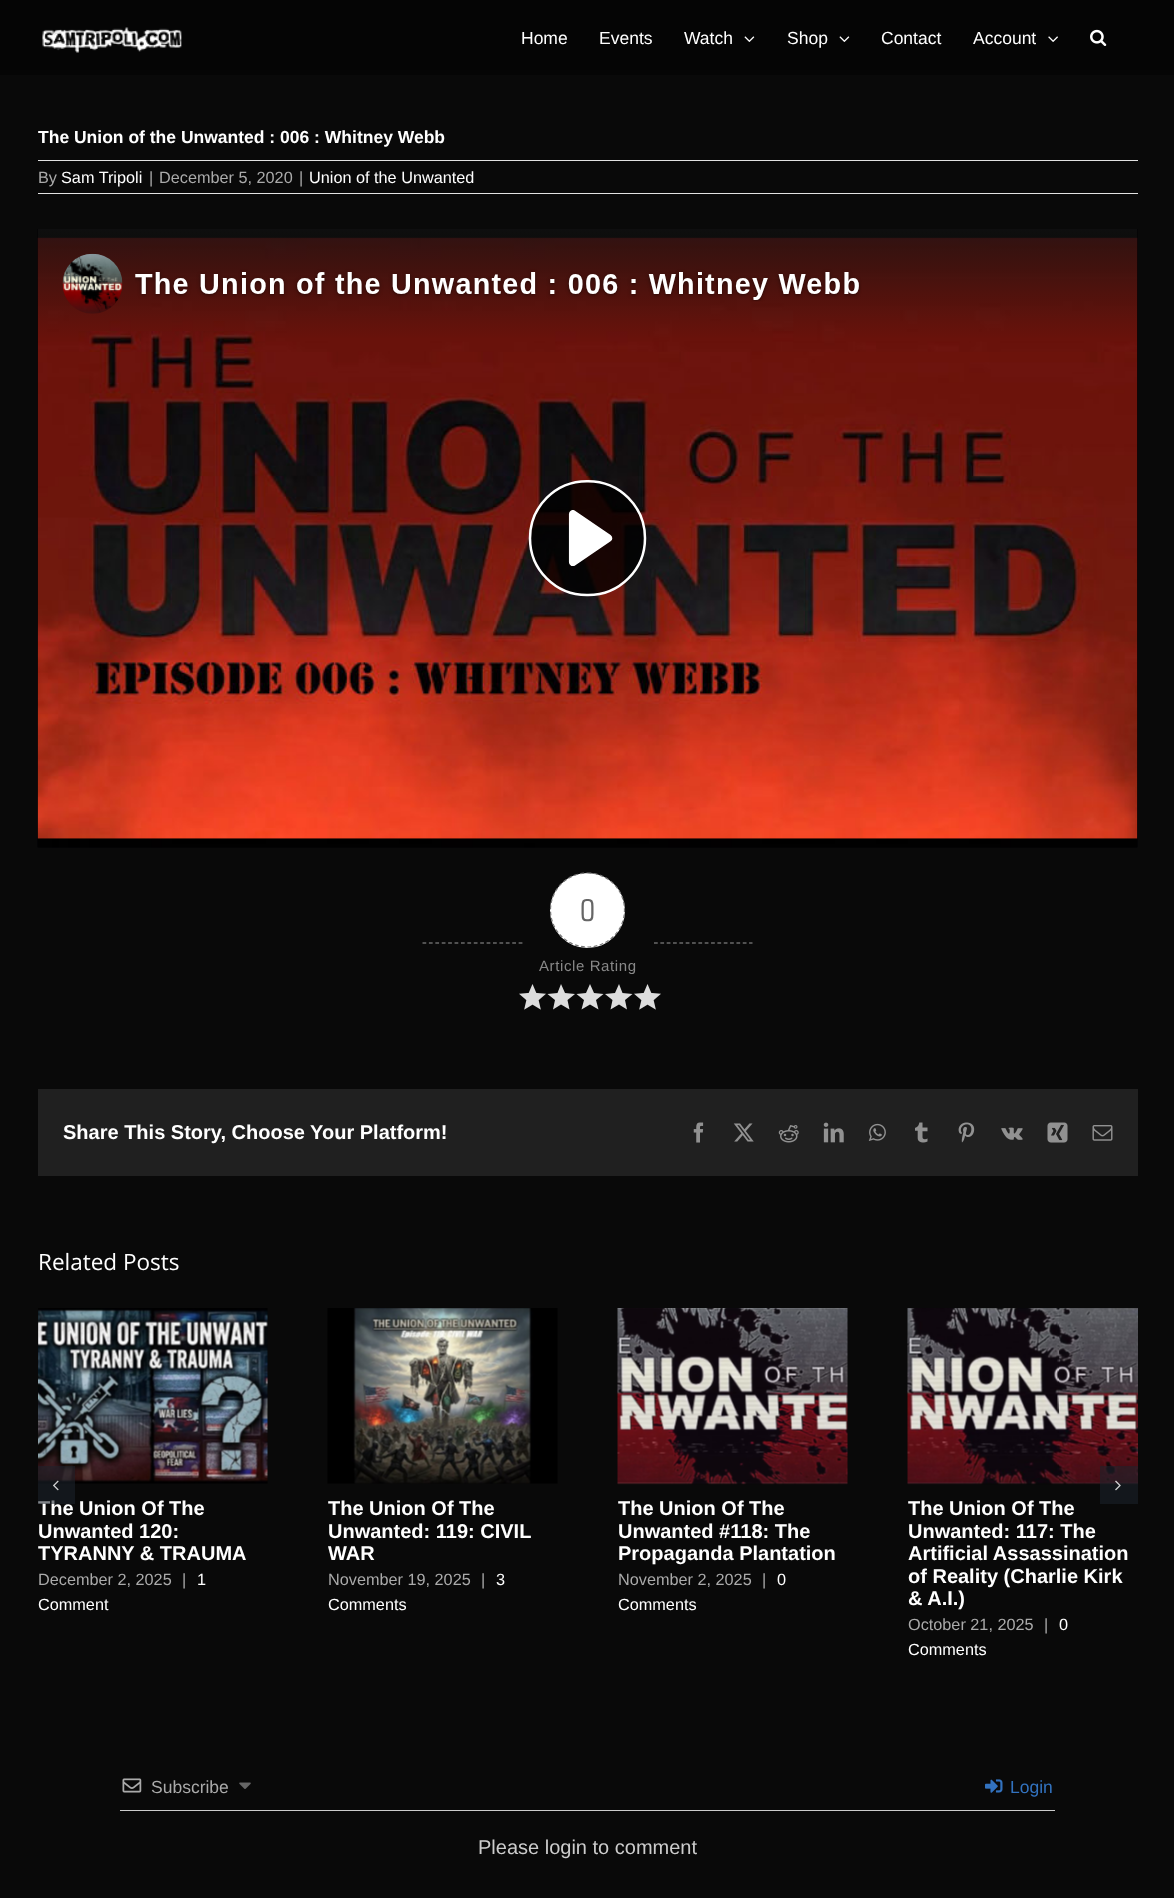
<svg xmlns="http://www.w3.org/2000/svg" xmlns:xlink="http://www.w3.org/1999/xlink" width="1174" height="1898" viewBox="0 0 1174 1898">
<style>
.cls-1{font:17.5px Liberation Sans;fill:#ffffff}
.cls-2{font:bold 17.5px Liberation Sans;fill:#ffffff}
.cls-3{font:16.25px Liberation Sans;fill:#aaaaaa}
.cls-4{font:16.25px Liberation Sans;fill:#ffffff}
.cls-5{font:30px 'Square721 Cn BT';fill:#666666}
.cls-6{font:15px Liberation Sans;letter-spacing:0.6px;fill:#888888}
.cls-7{font:bold 20px Liberation Sans;fill:#ffffff}
.cls-8{font:22.5px Open Sans;fill:#ffffff}
.cls-9{font:17.5px Liberation Sans;fill:#aaaaaa}
.cls-10{font:17.5px Liberation Sans;fill:#3272bf}
.cls-11{font:20px Liberation Sans;fill:#cccccc}
</style>
<defs>
<clipPath id="clip1"><rect x="38" y="1298" width="1100" height="373"/></clipPath>
</defs>
<rect width="100%" height="100%" fill="#090909"/>
<rect fill="#050505" x="0" y="0" width="1174" height="75"/>
<image xlink:href="image0.png" x="42" y="27" width="140" height="26"/>
<image xlink:href="image1.png" x="744" y="36" width="11" height="6"/>
<image xlink:href="image1.png" x="839" y="36" width="11" height="6"/>
<image xlink:href="image2.png" x="1048" y="36" width="10" height="6"/>
<image xlink:href="image3.png" x="1090" y="29" width="17" height="17"/>
<rect fill="#e2e2e2" x="38" y="160" width="1100" height="1"/>
<rect fill="#e2e2e2" x="38" y="193" width="1100" height="1"/>
<image xlink:href="image4.png" x="37" y="229" width="1101" height="619"/>
<path fill="none" stroke="#999999" stroke-width="1.2" stroke-dasharray="3.75 2.66" d="M422.5 943H522.5"/>
<circle fill="#ffffff" cx="587.5" cy="910.5" r="37.5"/>
<path fill="none" stroke="#777777" stroke-width="1.2" stroke-dasharray="3.75 2.5" d="M587.5 873C608 873 624.5 889.5 624.5 910C624.5 930.5 608 947 587.5 947C567 947 550.5 930.5 550.5 910C550.5 889.5 567 873 587.5 873Z"/>
<image xlink:href="image5.png" x="519" y="984" width="27" height="26"/>
<path fill="#dddddd" d="M561 1004.5L569.5 1009.5L567.5 1000L575 994L565 993L561 984L557.5 993L547.5 994L555 1000L553 1009.5ZM590 1004.5L598.5 1009.5L596 1000L603.5 994L594 993L590 984L586 993L576.5 994L584 1000L581.5 1009.5Z"/>
<path fill="#dddddd" d="M619 1004.5L627 1009.5L625 1000L632.5 994L622.5 993L619 984L615 993L605 994L612.5 1000L610.5 1009.5Z"/>
<image xlink:href="image5.png" x="634" y="984" width="27" height="26"/>
<path fill="none" stroke="#999999" stroke-width="1.2" stroke-dasharray="3.75 2.59" d="M654 943H752.5"/>
<rect fill="#202020" x="38" y="1089" width="1100" height="87"/>
<image xlink:href="image6.png" x="693" y="1122" width="11" height="21"/>
<image xlink:href="image7.png" x="733" y="1123" width="21" height="19"/>
<image xlink:href="image8.png" x="778" y="1125" width="21" height="18"/>
<image xlink:href="image9.png" x="823" y="1122" width="21" height="21"/>
<image xlink:href="image10.png" x="868" y="1123" width="18" height="18"/>
<image xlink:href="image11.png" x="915" y="1122" width="13" height="21"/>
<image xlink:href="image12.png" x="958" y="1122" width="17" height="21"/>
<image xlink:href="image13.png" x="1001" y="1127" width="22" height="13"/>
<image xlink:href="image14.png" x="1047" y="1122" width="21" height="21"/>
<image xlink:href="image15.png" x="1092" y="1125" width="21" height="16"/>
<image xlink:href="image21.png" x="907" y="1308" width="231" height="177"/>
<rect fill="#1d242d" fill-opacity="0.56" x="1100" y="1466" width="38" height="38"/>
<image xlink:href="image17.png" x="1115" y="1480" width="6" height="11"/>
<image xlink:href="image18.png" x="38" y="1308" width="230" height="176"/>
<image xlink:href="image19.png" x="327" y="1308" width="231" height="176"/>
<image xlink:href="image20.png" x="617" y="1308" width="231" height="177"/>
<rect fill="#cccccc" x="120" y="1810" width="935" height="1"/>
<image xlink:href="image22.png" x="122" y="1778" width="20" height="15"/>
<image xlink:href="image23.png" x="239" y="1782" width="12" height="7"/>
<image xlink:href="image24.png" x="985" y="1779" width="18" height="14"/>
<text class="cls-1" x="521" y="44">Home</text>
<text class="cls-1" x="599" y="44">Events</text>
<text class="cls-1" x="684" y="44">Watch</text>
<text class="cls-1" x="787" y="44">Shop</text>
<text class="cls-1" x="881" y="44">Contact</text>
<text class="cls-1" x="973" y="44">Account</text>
<text class="cls-2" x="38" y="143">The Union of the Unwanted : 006 : Whitney Webb</text>
<text class="cls-3" x="38" y="183">By</text>
<text class="cls-4" x="61" y="183">Sam Tripoli</text>
<text class="cls-3" x="149" y="183">|</text>
<text class="cls-3" x="159" y="183">December 5, 2020</text>
<text class="cls-3" x="299" y="183">|</text>
<text class="cls-4" x="309" y="183">Union of the Unwanted</text>
<text class="cls-5" x="580" y="921">0</text>
<text class="cls-6" x="539" y="971">Article Rating</text>
<text class="cls-7" x="63" y="1139">Share This Story, Choose Your Platform!</text>
<text class="cls-8" x="38" y="1270">Related Posts</text>
<g clip-path="url(#clip1)">
<text class="cls-7" x="38" y="1515">The Union Of The</text>
</g>
<rect fill="#1d242d" fill-opacity="0.56" x="38" y="1466" width="37" height="38"/>
<image xlink:href="image16.png" x="53" y="1480" width="6" height="11"/>
<text class="cls-7" x="38" y="1538">Unwanted 120:</text>
<g clip-path="url(#clip1)">
<text class="cls-7" x="38" y="1560">TYRANNY &amp; TRAUMA</text>
</g>
<text class="cls-3" x="38" y="1585">December 2, 2025</text>
<text class="cls-3" x="182" y="1585">|</text>
<text class="cls-4" x="197" y="1585">1</text>
<text class="cls-4" x="38" y="1610">Comment</text>
<text class="cls-7"><tspan x="328" y="1515">The Union Of The</tspan><tspan x="328" y="1538">Unwanted: 119: CIVIL</tspan><tspan x="328" y="1560">WAR</tspan></text>
<text class="cls-3" x="328" y="1585">November 19, 2025</text>
<text class="cls-3" x="481" y="1585">|</text>
<text class="cls-4" x="496" y="1585">3</text>
<text class="cls-4" x="328" y="1610">Comments</text>
<text class="cls-7"><tspan x="618" y="1515">The Union Of The</tspan><tspan x="618" y="1538">Unwanted #118: The</tspan><tspan x="618" y="1560">Propaganda Plantation</tspan></text>
<text class="cls-3" x="618" y="1585">November 2, 2025</text>
<text class="cls-3" x="762" y="1585">|</text>
<text class="cls-4" x="777" y="1585">0</text>
<text class="cls-4" x="618" y="1610">Comments</text>
<text class="cls-7"><tspan x="908" y="1515">The Union Of The</tspan><tspan x="908" y="1538">Unwanted: 117: The</tspan><tspan x="908" y="1560">Artificial Assassination</tspan><tspan x="908" y="1583">of Reality (Charlie Kirk</tspan><tspan x="908" y="1605">&amp; A.I.)</tspan></text>
<text class="cls-3" x="908" y="1630">October 21, 2025</text>
<text class="cls-3" x="1044" y="1630">|</text>
<text class="cls-4" x="1059" y="1630">0</text>
<text class="cls-4" x="908" y="1655">Comments</text>
<text class="cls-9" x="151" y="1793">Subscribe</text>
<text class="cls-10" x="1010" y="1793">Login</text>
<text class="cls-11" x="478" y="1854">Please login to comment</text>
</svg>
